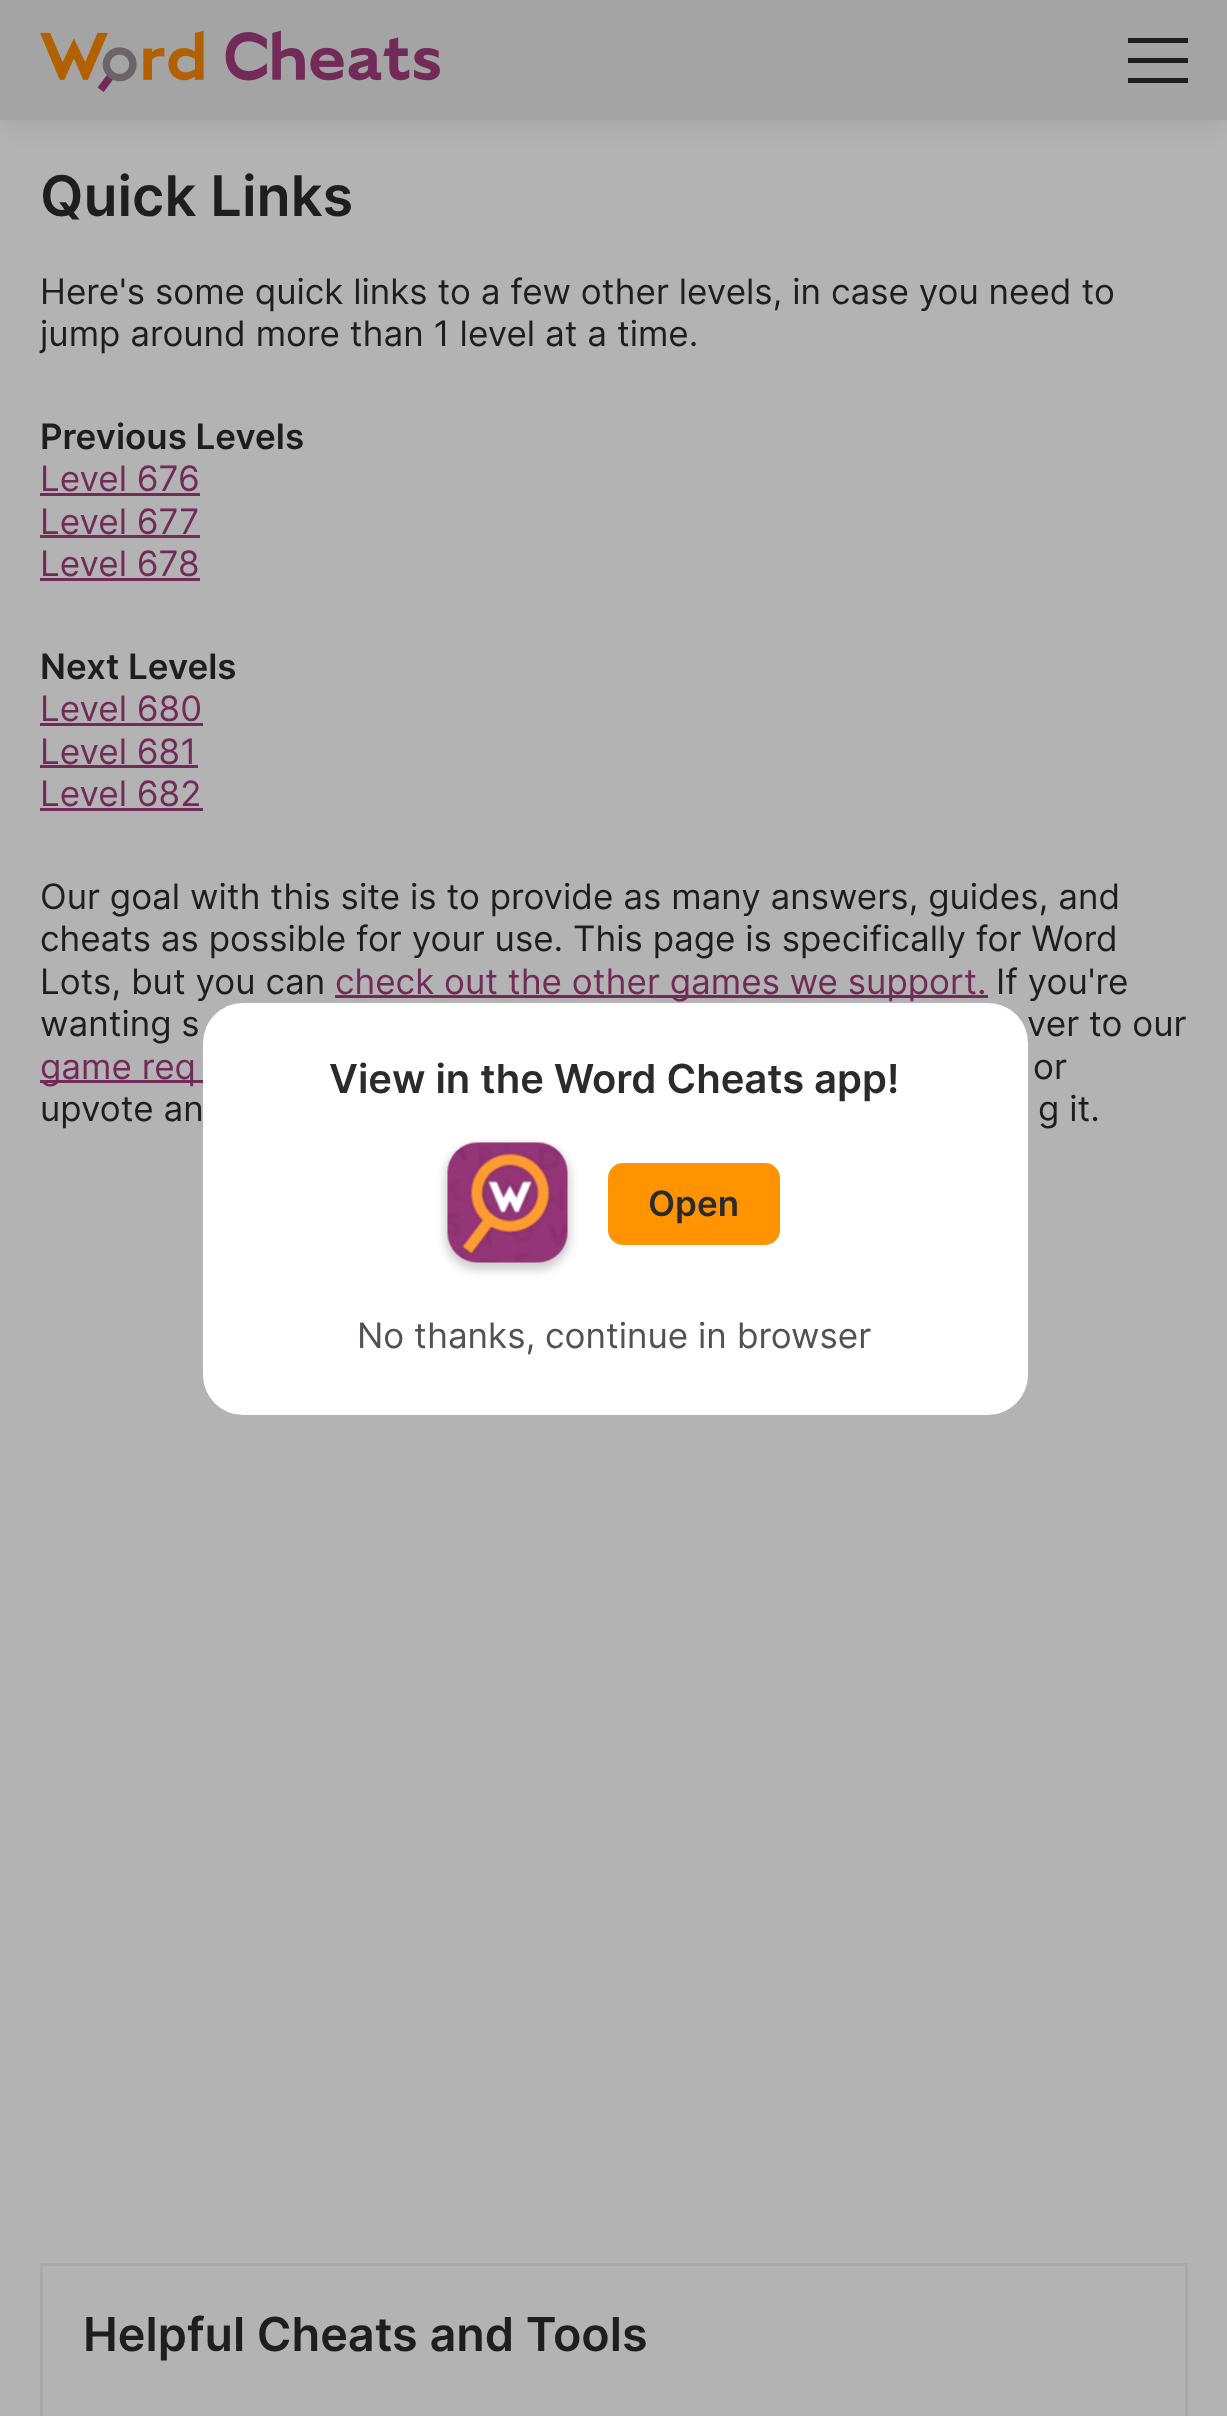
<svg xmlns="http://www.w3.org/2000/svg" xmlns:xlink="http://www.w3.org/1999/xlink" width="1227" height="2416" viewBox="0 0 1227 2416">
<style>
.cls-1{font:600 56px Inter;fill:#1e1e1e}
.cls-2{font:35px Inter;fill:#1e1e1e}
.cls-3{font:600 35px Inter;fill:#1e1e1e}
.cls-4{font:35px Inter;fill:#722b59}
.cls-5{font:600 46.75px Inter;fill:#1e1e1e}
.cls-6{font:600 40px Inter;fill:#2b2b2b}
.cls-7{font:600 35px Inter;fill:#2b2b2b}
.cls-8{font:35px Inter;fill:#555153}
</style>
<rect width="100%" height="100%" fill="#b3b3b3"/>
<rect fill="#000000" fill-opacity="0.07" filter="blur(12.5px)" x="0" y="5" width="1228" height="120"/>
<rect fill="#a4a4a4" x="0" y="0" width="1227" height="120"/>
<image xlink:href="image0.png" x="40" y="30" width="400" height="62"/>
<rect fill="#1e1e1e" x="1128" y="38" width="60" height="5"/>
<rect fill="#1e1e1e" x="1128" y="78" width="60" height="5"/>
<rect fill="#1e1e1e" x="1128" y="58" width="60" height="5"/>
<rect fill="#722b59" x="40" y="493" width="160" height="3"/>
<rect fill="#722b59" x="40" y="535" width="160" height="3"/>
<rect fill="#722b59" x="40" y="578" width="160" height="3"/>
<rect fill="#722b59" x="40" y="723" width="163" height="3"/>
<rect fill="#722b59" x="40" y="765" width="158" height="3"/>
<rect fill="#722b59" x="40" y="808" width="163" height="3"/>
<rect fill="#722b59" x="335" y="995" width="653" height="3"/>
<rect fill="#722b59" x="40" y="1080" width="163" height="3"/>
<rect fill="none" stroke="#a9a9a9" stroke-width="3" x="41.5" y="2264.5" width="1145" height="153"/>
<text class="cls-1" x="40" y="216">Quick Links</text>
<text class="cls-2"><tspan x="40" y="304">Here's some quick links to a few other levels, in case you need to</tspan><tspan x="40" y="346">jump around more than 1 level at a time.</tspan></text>
<text class="cls-3" x="40" y="449">Previous Levels</text>
<text class="cls-4"><tspan x="40" y="491">Level 676</tspan><tspan x="40" y="534">Level 677</tspan><tspan x="40" y="576">Level 678</tspan></text>
<text class="cls-3" x="40" y="679">Next Levels</text>
<text class="cls-4"><tspan x="40" y="721">Level 680</tspan><tspan x="40" y="764">Level 681</tspan><tspan x="40" y="806">Level 682</tspan></text>
<text class="cls-2"><tspan x="40" y="909">Our goal with this site is to provide as many answers, guides, and</tspan><tspan x="40" y="951">cheats as possible for your use. This page is specifically for Word</tspan><tspan x="40" y="994">Lots, but you can</tspan></text>
<text class="cls-4" x="335" y="994">check out the other games we support.</text>
<text class="cls-2" x="996" y="994">If you're</text>
<text class="cls-2" x="40" y="1036">wanting s</text>
<text class="cls-2" x="1027" y="1036">ver to our</text>
<text class="cls-4" x="40" y="1079">game req</text>
<text class="cls-2" x="1033" y="1079">or</text>
<text class="cls-2" x="40" y="1121">upvote an</text>
<text class="cls-2" x="1038" y="1121">g it.</text>
<text class="cls-5" x="83" y="2351">Helpful Cheats and Tools</text>
<rect fill="#ffffff" x="203" y="1003" width="825" height="412" rx="40"/>
<text class="cls-6" x="329" y="1093">View in the Word Cheats app!</text>
<rect fill="#000000" fill-opacity="0.19" filter="blur(5px)" x="445" y="1145" width="125" height="125" rx="33"/>
<image xlink:href="image1.png" x="447" y="1142" width="121" height="121"/>
<rect fill="#ff9400" x="608" y="1163" width="172" height="82" rx="15"/>
<text class="cls-7" x="648" y="1216">Open</text>
<text class="cls-8" x="357" y="1348">No thanks, continue in browser</text>
</svg>
